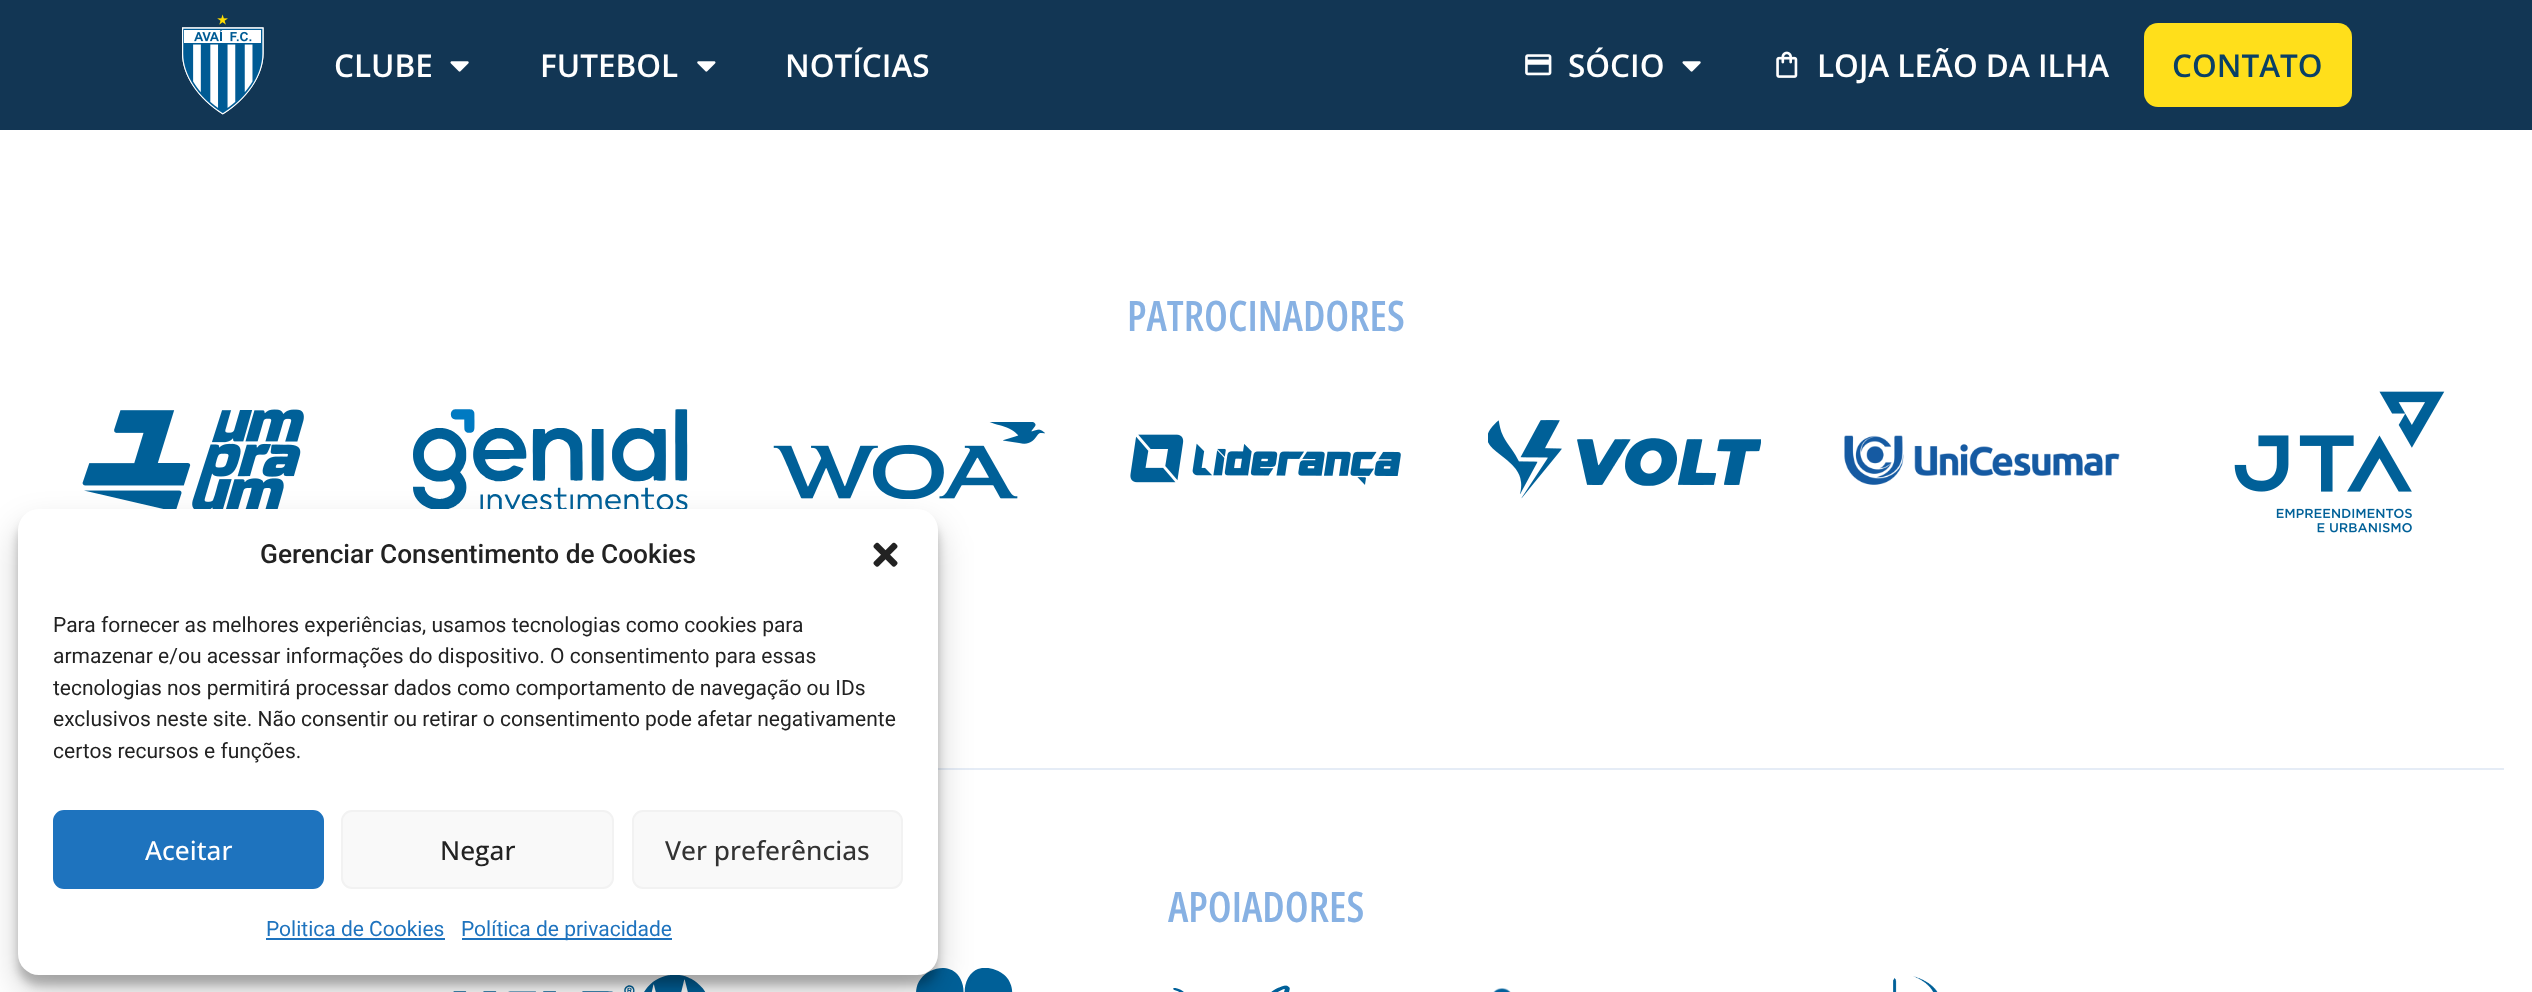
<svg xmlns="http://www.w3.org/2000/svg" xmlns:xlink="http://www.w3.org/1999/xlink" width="2532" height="992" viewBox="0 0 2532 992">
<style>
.cls-1{font:600 31.5px Open Sans;fill:#ffffff}
.cls-2{font:600 31.5px Open Sans;fill:#094066}
.cls-3{font:500 26.25px Roboto;fill:#222222}
.cls-4{font:21px Roboto;fill:#222222}
.cls-5{font:500 26.25px Open Sans;fill:#ffffff}
.cls-6{font:500 26.25px Open Sans;fill:#222222}
.cls-7{font:500 26.25px Open Sans;fill:#333333}
.cls-8{font:21px Roboto;fill:#1e73be}
.cls-9{font:600 42px Open Sans Condensed;fill:#87b1e3}
</style>
<rect width="100%" height="100%" fill="#ffffff"/>
<rect fill="#123654" x="0" y="0" width="2532" height="130"/>
<image xlink:href="image0.png" x="182" y="14" width="82" height="101"/>
<image xlink:href="image1.png" x="450" y="61" width="19" height="11"/>
<image xlink:href="image2.png" x="697" y="61" width="19" height="11"/>
<image xlink:href="image3.png" x="1525" y="54" width="27" height="22"/>
<image xlink:href="image1.png" x="1682" y="61" width="19" height="11"/>
<image xlink:href="image4.png" x="1776" y="51" width="22" height="27"/>
<rect fill="#ffdf1b" x="2144" y="23" width="208" height="84" rx="14"/>
<image xlink:href="image6.png" x="82" y="409" width="222" height="100"/>
<image xlink:href="image7.png" x="413" y="409" width="275" height="100"/>
<rect fill="#e5ecf6" x="938" y="768" width="1566" height="2"/>
<image xlink:href="image13.png" x="453" y="975" width="253" height="17"/>
<image xlink:href="image14.png" x="916" y="968" width="97" height="24"/>
<rect fill="#000000" fill-opacity="0.23" filter="blur(5px)" x="18" y="520" width="920" height="465" rx="21"/>
<image xlink:href="image8.png" x="773" y="422" width="272" height="77"/>
<rect fill="#000000" fill-opacity="0.19" filter="blur(17.5px)" x="18" y="527" width="920" height="465" rx="21"/>
<rect fill="#ffffff" x="18" y="509" width="920" height="466" rx="21"/>
<image xlink:href="image5.png" x="873" y="542" width="25" height="25"/>
<rect fill="#1e73be" stroke="#1e73be" stroke-width="2" x="54" y="811" width="269" height="77" rx="10"/>
<rect fill="#f9f9f9" stroke="#f2f2f2" stroke-width="2" x="342" y="811" width="271" height="77" rx="10"/>
<rect fill="#f9f9f9" stroke="#f2f2f2" stroke-width="2" x="633" y="811" width="269" height="77" rx="10"/>
<rect fill="#1e73be" x="266" y="938" width="179" height="2"/>
<rect fill="#1e73be" x="462" y="938" width="210" height="2"/>
<image xlink:href="image9.png" x="1130" y="434" width="271" height="51"/>
<image xlink:href="image10.png" x="1488" y="420" width="273" height="79"/>
<image xlink:href="image11.png" x="1844" y="435" width="276" height="50"/>
<image xlink:href="image12.png" x="2234" y="391" width="211" height="142"/>
<image xlink:href="image15.png" x="1173" y="985" width="117" height="7"/>
<image xlink:href="image16.png" x="1493" y="988" width="18" height="4"/>
<image xlink:href="image17.png" x="1893" y="976" width="45" height="16"/>
<text class="cls-1" x="334" y="77">CLUBE</text>
<text class="cls-1" x="540" y="77">FUTEBOL</text>
<text class="cls-1" x="785" y="77">NOTÍCIAS</text>
<text class="cls-1" x="1568" y="77">SÓCIO</text>
<text class="cls-1" x="1817" y="77">LOJA LEÃO DA ILHA</text>
<text class="cls-2" x="2172" y="77">CONTATO</text>
<text class="cls-3" x="260" y="563">Gerenciar Consentimento de Cookies</text>
<text class="cls-4"><tspan x="53" y="632">Para fornecer as melhores experiências, usamos tecnologias como cookies para</tspan><tspan x="53" y="663">armazenar e/ou acessar informações do dispositivo. O consentimento para essas</tspan><tspan x="53" y="695">tecnologias nos permitirá processar dados como comportamento de navegação ou IDs</tspan><tspan x="53" y="726">exclusivos neste site. Não consentir ou retirar o consentimento pode afetar negativamente</tspan><tspan x="53" y="758">certos recursos e funções.</tspan></text>
<text class="cls-5" x="145" y="860">Aceitar</text>
<text class="cls-6" x="440" y="860">Negar</text>
<text class="cls-7" x="665" y="860">Ver preferências</text>
<text class="cls-8" x="266" y="936">Politica de Cookies</text>
<text class="cls-8" x="461" y="936">Política de privacidade</text>
<text class="cls-9" x="1127" y="331">PATROCINADORES</text>
<text class="cls-9" x="1168" y="922">APOIADORES</text>
</svg>
